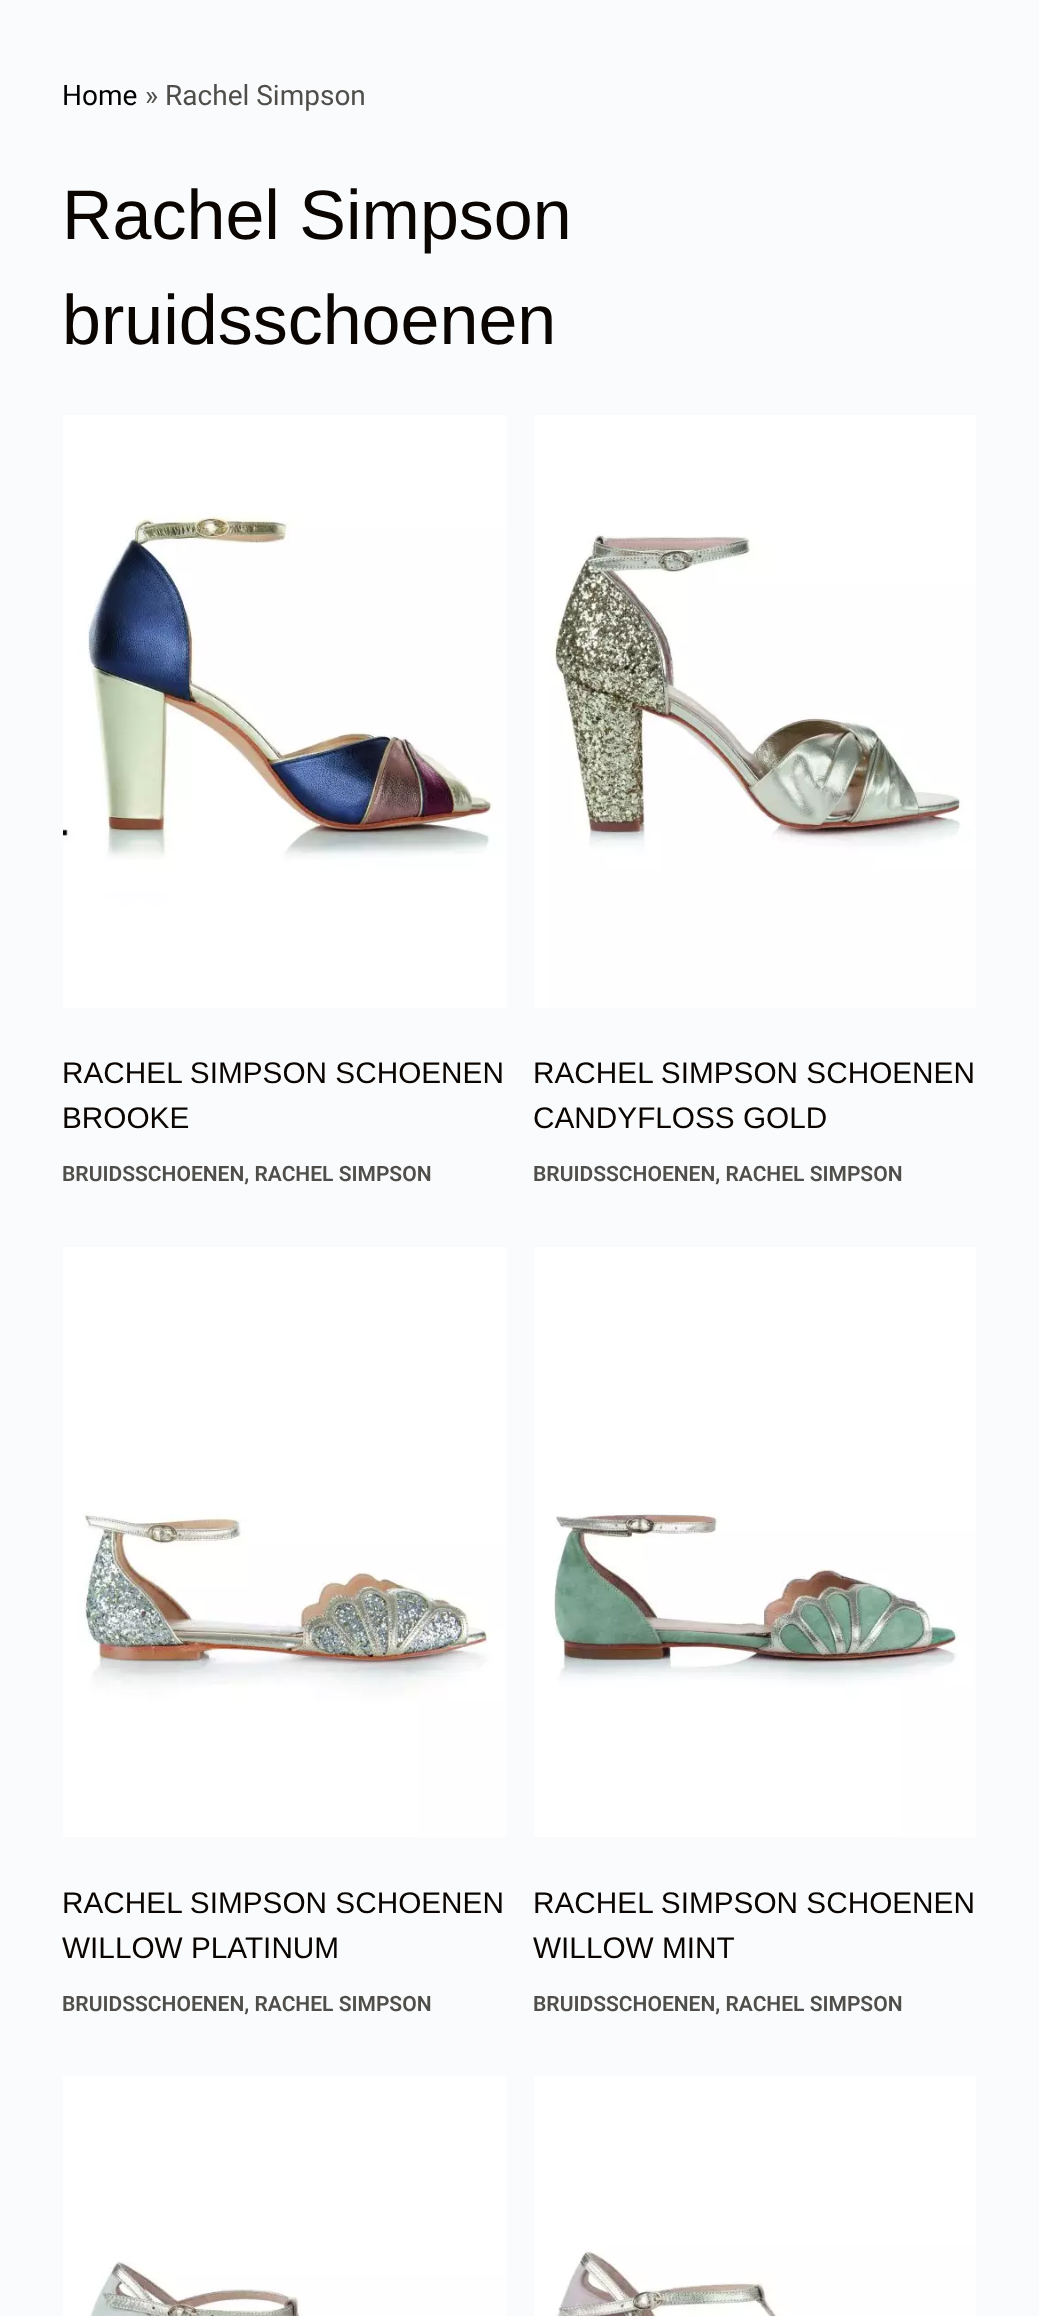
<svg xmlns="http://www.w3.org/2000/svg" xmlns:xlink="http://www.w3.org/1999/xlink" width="1039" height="2316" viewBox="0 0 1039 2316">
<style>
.cls-1{font:28px Roboto;fill:#000000}
.cls-2{font:28px Roboto;fill:#504e4a}
.cls-3{font:70px Liberation Sans;fill:#0a0500}
.cls-4{font:29.75px Liberation Sans;fill:#0a0500}
.cls-5{font:600 21px Roboto;fill:#504e4a}
</style>
<rect width="100%" height="100%" fill="#fafbfc"/>
<image xlink:href="image0.png" x="63" y="415" width="444" height="593"/>
<image xlink:href="image1.png" x="534" y="415" width="442" height="593"/>
<image xlink:href="image2.png" x="63" y="1247" width="444" height="590"/>
<image xlink:href="image3.png" x="534" y="1247" width="442" height="590"/>
<image xlink:href="image4.png" x="63" y="2076" width="444" height="240"/>
<image xlink:href="image5.png" x="534" y="2076" width="442" height="240"/>
<text class="cls-1" x="62" y="105">Home</text>
<text class="cls-2" x="145" y="105">» Rachel Simpson</text>
<text class="cls-3"><tspan x="62" y="239">Rachel Simpson</tspan><tspan x="62" y="344">bruidsschoenen</tspan></text>
<text class="cls-4"><tspan x="62" y="1083">RACHEL SIMPSON SCHOENEN</tspan><tspan x="62" y="1128">BROOKE</tspan></text>
<text class="cls-5" x="62" y="1181">BRUIDSSCHOENEN, RACHEL SIMPSON</text>
<text class="cls-4"><tspan x="533" y="1083">RACHEL SIMPSON SCHOENEN</tspan><tspan x="533" y="1128">CANDYFLOSS GOLD</tspan></text>
<text class="cls-5" x="533" y="1181">BRUIDSSCHOENEN, RACHEL SIMPSON</text>
<text class="cls-4"><tspan x="62" y="1913">RACHEL SIMPSON SCHOENEN</tspan><tspan x="62" y="1958">WILLOW PLATINUM</tspan></text>
<text class="cls-5" x="62" y="2011">BRUIDSSCHOENEN, RACHEL SIMPSON</text>
<text class="cls-4"><tspan x="533" y="1913">RACHEL SIMPSON SCHOENEN</tspan><tspan x="533" y="1958">WILLOW MINT</tspan></text>
<text class="cls-5" x="533" y="2011">BRUIDSSCHOENEN, RACHEL SIMPSON</text>
</svg>
